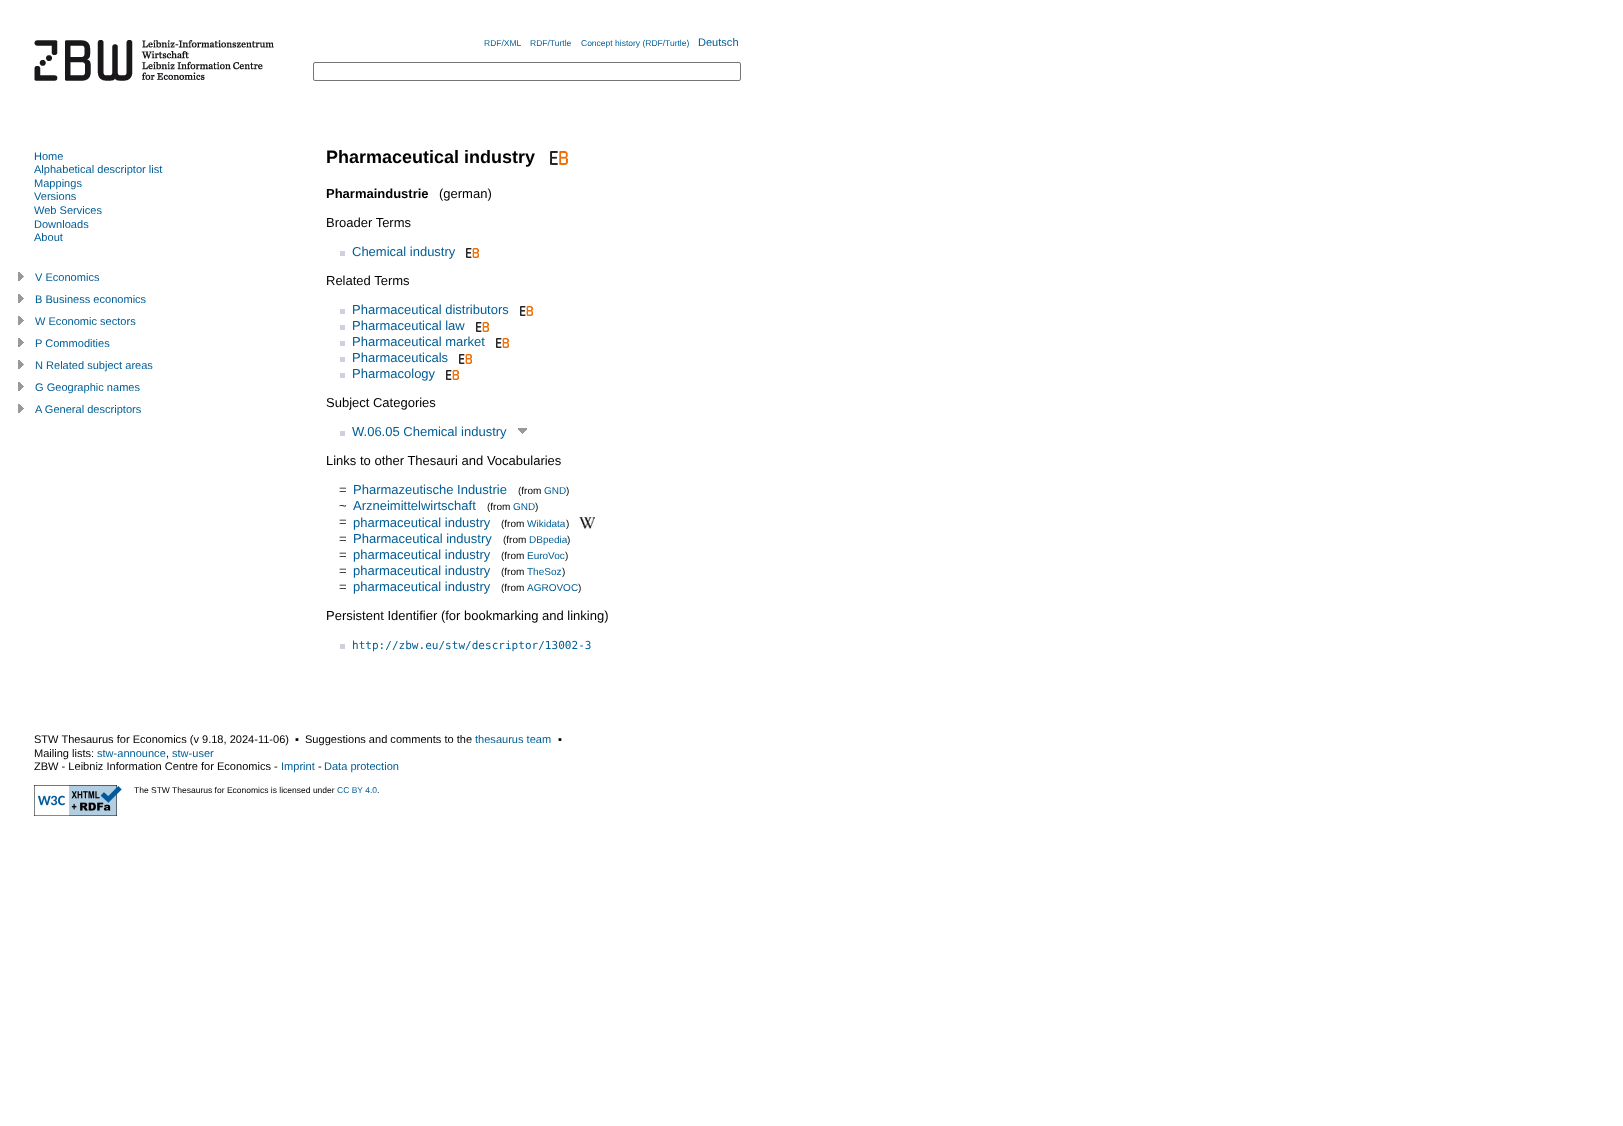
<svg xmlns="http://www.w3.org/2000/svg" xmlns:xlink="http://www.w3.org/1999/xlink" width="1623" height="1126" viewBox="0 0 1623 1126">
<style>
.cls-1{font:8.5px Liberation Sans;fill:#005d95}
.cls-2{font:11.05px Liberation Sans;fill:#005d95}
.cls-3{font:bold 18px Liberation Sans;fill:#000000}
.cls-4{font:bold 13px Liberation Sans;fill:#000000}
.cls-5{font:13px Liberation Sans;fill:#000000}
.cls-6{font:13px Liberation Sans;fill:#005d95}
.cls-7{font:10px Liberation Sans;fill:#000000}
.cls-8{font:10px Liberation Sans;fill:#005d95}
.cls-9{font:11.05px DejaVu Sans Mono;fill:#005d95}
.cls-10{font:11.05px Liberation Sans;fill:#000000}
.cls-11{font:8.5px Liberation Sans;fill:#000000}
</style>
<rect width="100%" height="100%" fill="#ffffff"/>
<image xlink:href="image0.png" x="34" y="40" width="240" height="41"/>
<rect fill="none" stroke="#767676" x="313.5" y="62.5" width="427" height="18" rx="1.5"/>
<image xlink:href="image1.png" x="18" y="272" width="6" height="9"/>
<image xlink:href="image1.png" x="18" y="294" width="6" height="9"/>
<image xlink:href="image1.png" x="18" y="316" width="6" height="9"/>
<image xlink:href="image1.png" x="18" y="338" width="6" height="9"/>
<image xlink:href="image1.png" x="18" y="360" width="6" height="9"/>
<image xlink:href="image1.png" x="18" y="382" width="6" height="9"/>
<image xlink:href="image1.png" x="18" y="404" width="6" height="9"/>
<image xlink:href="image2.png" x="550" y="151" width="18" height="14"/>
<rect fill="#d1cfdd" x="340" y="251" width="5" height="5"/>
<image xlink:href="image3.png" x="466" y="248" width="13" height="10"/>
<rect fill="#d1cfdd" x="340" y="309" width="5" height="5"/>
<image xlink:href="image3.png" x="520" y="306" width="13" height="10"/>
<rect fill="#d1cfdd" x="340" y="325" width="5" height="5"/>
<image xlink:href="image3.png" x="476" y="322" width="13" height="10"/>
<rect fill="#d1cfdd" x="340" y="341" width="5" height="5"/>
<image xlink:href="image3.png" x="496" y="338" width="13" height="10"/>
<rect fill="#d1cfdd" x="340" y="357" width="5" height="5"/>
<image xlink:href="image3.png" x="459" y="354" width="13" height="10"/>
<rect fill="#d1cfdd" x="340" y="373" width="5" height="5"/>
<image xlink:href="image3.png" x="446" y="370" width="13" height="10"/>
<rect fill="#d1cfdd" x="340" y="431" width="5" height="5"/>
<image xlink:href="image4.png" x="518" y="428" width="9" height="6"/>
<image xlink:href="image5.png" x="579" y="517" width="16" height="12"/>
<rect fill="#d1cfdd" x="340" y="644" width="5" height="5"/>
<image xlink:href="image6.png" x="34" y="785" width="88" height="31"/>
<text class="cls-1" x="484" y="46">RDF/XML</text>
<text class="cls-1" x="530" y="46">RDF/Turtle</text>
<text class="cls-1" x="581" y="46">Concept history (RDF/Turtle)</text>
<text class="cls-2" x="698" y="46">Deutsch</text>
<text class="cls-2"><tspan x="34" y="160">Home</tspan><tspan x="34" y="173">Alphabetical descriptor list</tspan><tspan x="34" y="187">Mappings</tspan><tspan x="34" y="200">Versions</tspan><tspan x="34" y="214">Web Services</tspan><tspan x="34" y="228">Downloads</tspan><tspan x="34" y="241">About</tspan></text>
<text class="cls-2"><tspan x="35" y="281">V Economics</tspan><tspan x="35" y="303">B Business economics</tspan><tspan x="35" y="325">W Economic sectors</tspan><tspan x="35" y="347">P Commodities</tspan><tspan x="35" y="369">N Related subject areas</tspan><tspan x="35" y="391">G Geographic names</tspan><tspan x="35" y="413">A General descriptors</tspan></text>
<text class="cls-3" x="326" y="163">Pharmaceutical industry</text>
<text class="cls-4" x="326" y="198">Pharmaindustrie</text>
<text class="cls-5" x="439" y="198">(german)</text>
<text class="cls-5" x="326" y="227">Broader Terms</text>
<text class="cls-6" x="352" y="256">Chemical industry</text>
<text class="cls-5" x="326" y="285">Related Terms</text>
<text class="cls-6"><tspan x="352" y="314">Pharmaceutical distributors</tspan><tspan x="352" y="330">Pharmaceutical law</tspan><tspan x="352" y="346">Pharmaceutical market</tspan><tspan x="352" y="362">Pharmaceuticals</tspan><tspan x="352" y="378">Pharmacology</tspan></text>
<text class="cls-5" x="326" y="407">Subject Categories</text>
<text class="cls-6" x="352" y="436">W.06.05 Chemical industry</text>
<text class="cls-5" x="326" y="465">Links to other Thesauri and Vocabularies</text>
<text class="cls-5" x="339" y="494">=</text>
<text class="cls-6" x="353" y="494">Pharmazeutische Industrie</text>
<text class="cls-7" x="518" y="494">(from</text>
<text class="cls-8" x="544" y="494">GND</text>
<text class="cls-7" x="566" y="494">)</text>
<text class="cls-5" x="339" y="510">~</text>
<text class="cls-6" x="353" y="510">Arzneimittelwirtschaft</text>
<text class="cls-7" x="487" y="510">(from</text>
<text class="cls-8" x="513" y="510">GND</text>
<text class="cls-7" x="535" y="510">)</text>
<text class="cls-5" x="339" y="526">=</text>
<text class="cls-6" x="353" y="527">pharmaceutical industry</text>
<text class="cls-7" x="501" y="527">(from</text>
<text class="cls-8" x="527" y="527">Wikidata</text>
<text class="cls-7" x="566" y="527">)</text>
<text class="cls-5" x="339" y="543">=</text>
<text class="cls-6" x="353" y="543">Pharmaceutical industry</text>
<text class="cls-7" x="503" y="543">(from</text>
<text class="cls-8" x="529" y="543">DBpedia</text>
<text class="cls-7" x="567" y="543">)</text>
<text class="cls-5" x="339" y="559">=</text>
<text class="cls-6" x="353" y="559">pharmaceutical industry</text>
<text class="cls-7" x="501" y="559">(from</text>
<text class="cls-8" x="527" y="559">EuroVoc</text>
<text class="cls-7" x="565" y="559">)</text>
<text class="cls-5" x="339" y="575">=</text>
<text class="cls-6" x="353" y="575">pharmaceutical industry</text>
<text class="cls-7" x="501" y="575">(from</text>
<text class="cls-8" x="527" y="575">TheSoz</text>
<text class="cls-7" x="562" y="575">)</text>
<text class="cls-5" x="339" y="591">=</text>
<text class="cls-6" x="353" y="591">pharmaceutical industry</text>
<text class="cls-7" x="501" y="591">(from</text>
<text class="cls-8" x="527" y="591">AGROVOC</text>
<text class="cls-7" x="578" y="591">)</text>
<text class="cls-5" x="326" y="620">Persistent Identifier (for bookmarking and linking)</text>
<text class="cls-9" x="352" y="649">http://zbw.eu/stw/descriptor/13002-3</text>
<text class="cls-10" x="34" y="743">STW Thesaurus for Economics (v 9.18, 2024-11-06)</text>
<text class="cls-10" x="295" y="743">▪</text>
<text class="cls-10" x="305" y="743">Suggestions and comments to the</text>
<text class="cls-2" x="475" y="743">thesaurus team</text>
<text class="cls-10" x="558" y="743">▪</text>
<text class="cls-10" x="34" y="757">Mailing lists:</text>
<text class="cls-2" x="97" y="757">stw-announce</text>
<text class="cls-10" x="166" y="757">,</text>
<text class="cls-2" x="172" y="757">stw-user</text>
<text class="cls-10" x="34" y="770">ZBW - Leibniz Information Centre for Economics -</text>
<text class="cls-2" x="281" y="770">Imprint</text>
<text class="cls-10" x="318" y="770">-</text>
<text class="cls-2" x="324" y="770">Data protection</text>
<text class="cls-11" x="134" y="793">The STW Thesaurus for Economics is licensed under</text>
<text class="cls-1" x="337" y="793">CC BY 4.0</text>
<text class="cls-11" x="377" y="793">.</text>
</svg>
